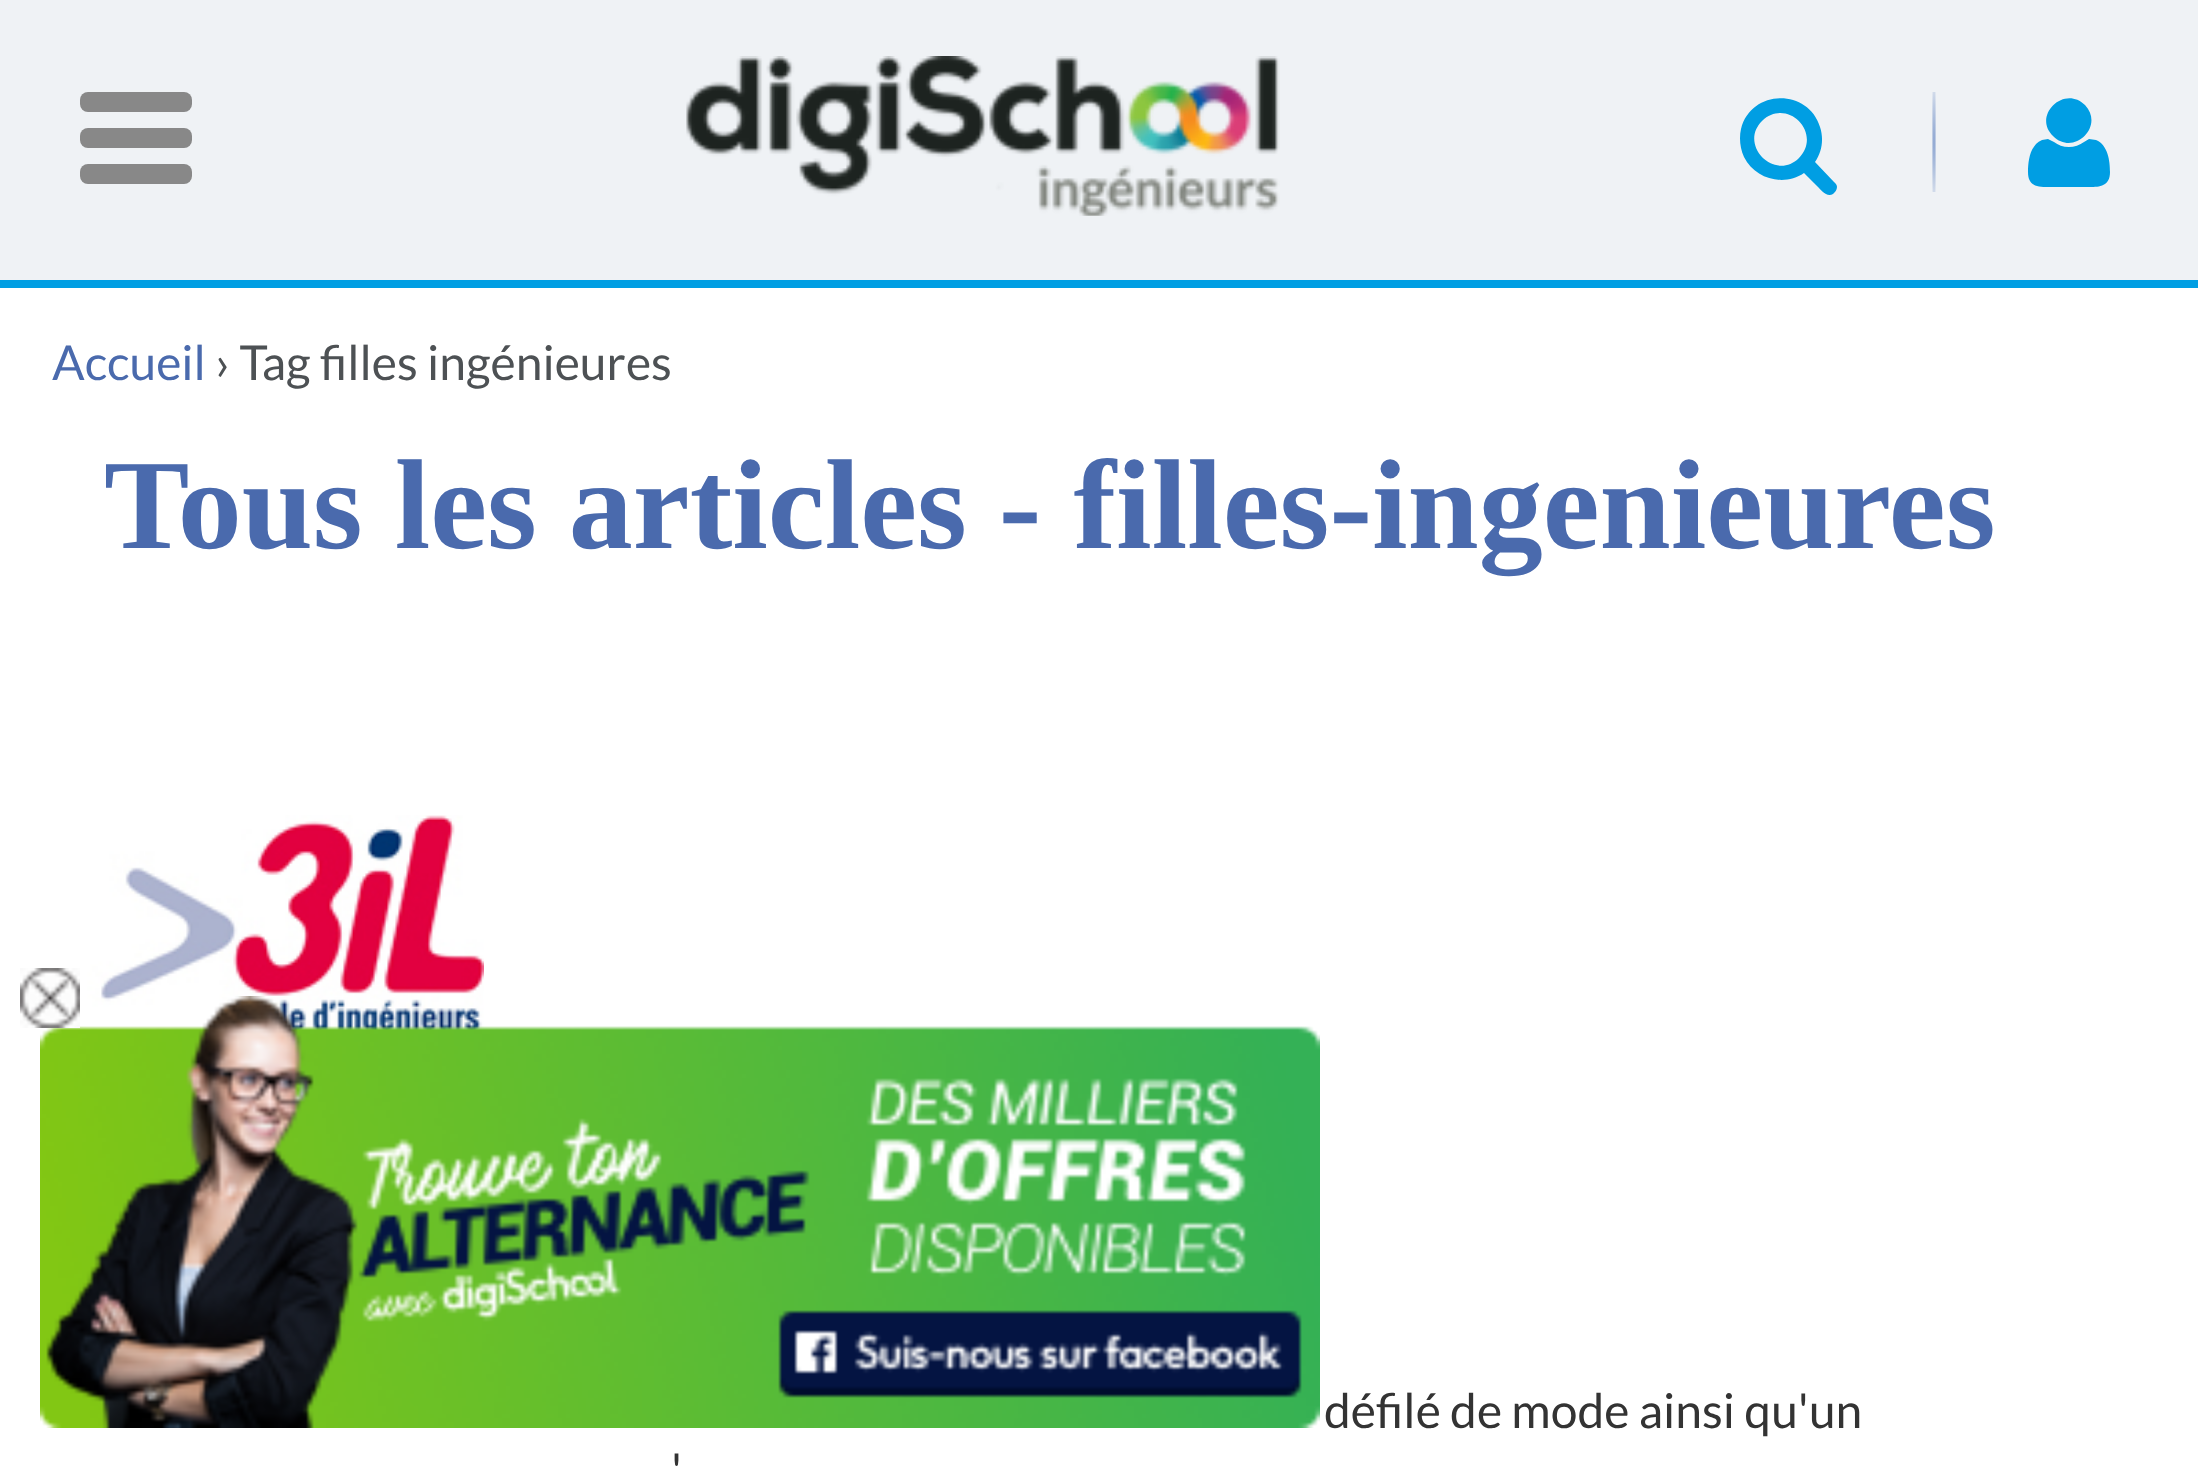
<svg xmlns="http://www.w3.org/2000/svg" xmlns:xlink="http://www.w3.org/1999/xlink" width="2198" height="1468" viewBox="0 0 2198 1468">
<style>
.cls-1{font:48px Lato;fill:#4a6aad}
.cls-2{font:48px Lato;fill:#4d5154}
.cls-3{font:bold 128px Liberation Serif;fill:#4a6aad}
.cls-4{font:48px Lato;fill:#333333}
</style>
<defs>
<radialGradient id="g1" gradientUnits="userSpaceOnUse" cx="0" cy="0" r="1" gradientTransform="matrix(2.8 0 0 71 1934 142)"><stop offset="0" stop-color="#829dcd"/><stop offset="1" stop-color="#eff2f5"/></radialGradient>
</defs>
<rect width="100%" height="100%" fill="#ffffff"/>
<rect fill="#009ee3" x="0" y="280" width="2198" height="8"/>
<rect fill="#eff2f5" x="0" y="0" width="2198" height="280"/>
<rect fill="#888888" x="80" y="128" width="112" height="20" rx="8"/>
<rect fill="#888888" x="80" y="92" width="112" height="20" rx="8"/>
<rect fill="#888888" x="80" y="164" width="112" height="20" rx="8"/>
<image xlink:href="image0.png" x="686" y="56" width="594" height="160"/>
<path fill="#009ee3" d="M1799 158C1823 133 1787 97 1762 121C1738 145 1775 182 1799 158ZM1837 187C1837 190 1835 192 1833 194C1827 198 1821 190 1817 186L1804 173C1784 187 1755 179 1744 157C1740 148 1739 138 1741 129C1751 89 1808 88 1820 127C1824 139 1822 152 1815 162L1834 182C1836 184 1837 185 1837 187Z"/>
<rect fill="url(#g1)" x="1932" y="92" width="4" height="100"/>
<path fill="#009ee3" d="M2110 172C2110 188 2097 187 2086 187H2052C2040 187 2028 188 2028 172C2028 161 2030 145 2042 140L2048 139L2054 142C2058 145 2063 147 2069 147C2074 147 2080 145 2084 142L2089 139L2096 140C2108 145 2110 161 2110 172ZM2085 105C2105 126 2074 157 2053 136C2032 116 2064 84 2085 105Z"/>
<image xlink:href="image1.png" x="48" y="815" width="436" height="223"/>
<image xlink:href="image3.png" x="40" y="996" width="1280" height="432"/>
<image xlink:href="image2.png" x="20" y="968" width="60" height="60"/>
<text class="cls-1" x="52" y="380">Accueil</text>
<text class="cls-2" x="215" y="380">› Tag filles ingénieures</text>
<text class="cls-3" x="104" y="548">Tous les articles - filles-ingenieures</text>
<text class="cls-4" x="1324" y="1428">défilé de mode ainsi qu'un</text>
<text class="cls-4" x="671" y="1488">'</text>
</svg>
